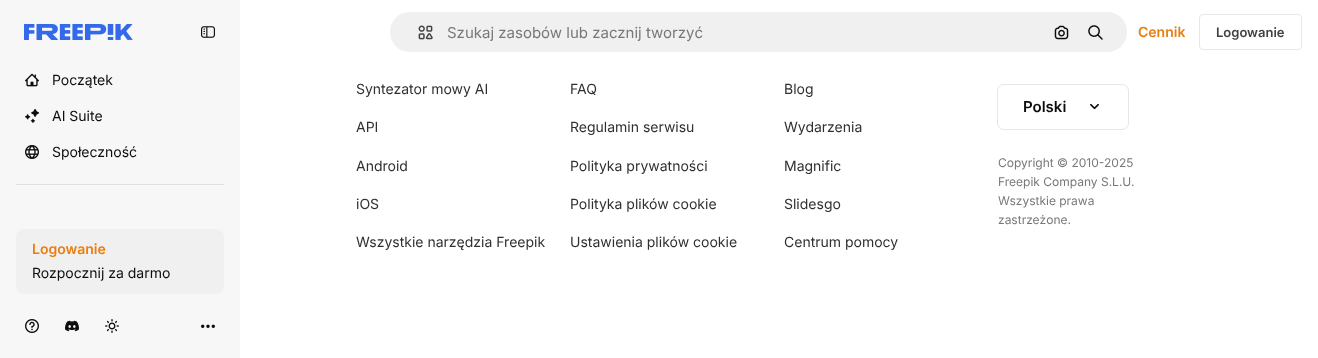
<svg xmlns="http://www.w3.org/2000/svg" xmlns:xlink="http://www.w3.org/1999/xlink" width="1318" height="358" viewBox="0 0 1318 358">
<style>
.cls-1{font:14px Inter;fill:#0d0d0d}
.cls-2{font:600 14px Inter;fill:#ea7e11}
.cls-3{font:15px Inter;fill:#787878}
.cls-4{font:600 13px Inter;fill:#424242}
.cls-5{font:14px Inter;fill:#303030}
.cls-6{font:600 15px Inter;fill:#0d0d0d}
.cls-7{font:12px Inter;fill:#787878}
</style>
<rect width="100%" height="100%" fill="#ffffff"/>
<rect fill="#f7f7f7" x="0" y="0" width="240" height="358"/>
<image xlink:href="image0.png" x="24" y="24" width="109" height="16"/>
<image xlink:href="image1.png" x="201" y="26" width="14" height="12"/>
<image xlink:href="image2.png" x="25" y="73" width="14" height="14"/>
<image xlink:href="image3.png" x="25" y="109" width="14" height="14"/>
<image xlink:href="image4.png" x="25" y="145" width="14" height="14"/>
<rect fill="#e0e0e0" x="16" y="184" width="208" height="1"/>
<rect fill="#f0f0f0" x="16" y="229" width="208" height="65" rx="8"/>
<image xlink:href="image5.png" x="25" y="319" width="14" height="14"/>
<image xlink:href="image6.png" x="65" y="320" width="14" height="12"/>
<image xlink:href="image7.png" x="105" y="319" width="14" height="14"/>
<image xlink:href="image8.png" x="201" y="324" width="14" height="4"/>
<rect fill="#f0f0f0" stroke="#ffffff" x="389.5" y="11.5" width="738" height="41" rx="20.5"/>
<image xlink:href="image9.png" x="418" y="25" width="15" height="15"/>
<image xlink:href="image10.png" x="1054" y="25" width="15" height="15"/>
<image xlink:href="image11.png" x="1088" y="25" width="15" height="15"/>
<rect fill="none" stroke="#e7e7e7" x="1199.5" y="14.5" width="102" height="35" rx="3.5"/>
<rect fill="none" stroke="#e6e6e6" x="997.5" y="84.5" width="131" height="45" rx="6.5"/>
<image xlink:href="image12.png" x="1090" y="103" width="9" height="7"/>
<text class="cls-1" x="52" y="85">Początek</text>
<text class="cls-1" x="52" y="121">AI Suite</text>
<text class="cls-1" x="52" y="157">Społeczność</text>
<text class="cls-2" x="32" y="254">Logowanie</text>
<text class="cls-1" x="32" y="278">Rozpocznij za darmo</text>
<text class="cls-3" x="447" y="38">Szukaj zasobów lub zacznij tworzyć</text>
<text class="cls-2" x="1138" y="37">Cennik</text>
<text class="cls-4" x="1216" y="37">Logowanie</text>
<text class="cls-5" x="356" y="94">Syntezator mowy AI</text>
<text class="cls-5" x="356" y="132">API</text>
<text class="cls-5" x="356" y="171">Android</text>
<text class="cls-5" x="356" y="209">iOS</text>
<text class="cls-5" x="356" y="247">Wszystkie narzędzia Freepik</text>
<text class="cls-5" x="570" y="94">FAQ</text>
<text class="cls-5" x="570" y="132">Regulamin serwisu</text>
<text class="cls-5" x="570" y="171">Polityka prywatności</text>
<text class="cls-5" x="570" y="209">Polityka plików cookie</text>
<text class="cls-5" x="570" y="247">Ustawienia plików cookie</text>
<text class="cls-5" x="784" y="94">Blog</text>
<text class="cls-5" x="784" y="132">Wydarzenia</text>
<text class="cls-5" x="784" y="171">Magnific</text>
<text class="cls-5" x="784" y="209">Slidesgo</text>
<text class="cls-5" x="784" y="247">Centrum pomocy</text>
<text class="cls-6" x="1023" y="112">Polski</text>
<text class="cls-7" x="998" y="167">Copyright © 2010-</text>
<text class="cls-7" x="1104" y="167">2025</text>
<text class="cls-7"><tspan x="998" y="186">Freepik Company S.L.U.</tspan><tspan x="998" y="205">Wszystkie prawa</tspan><tspan x="998" y="224">zastrzeżone.</tspan></text>
</svg>
